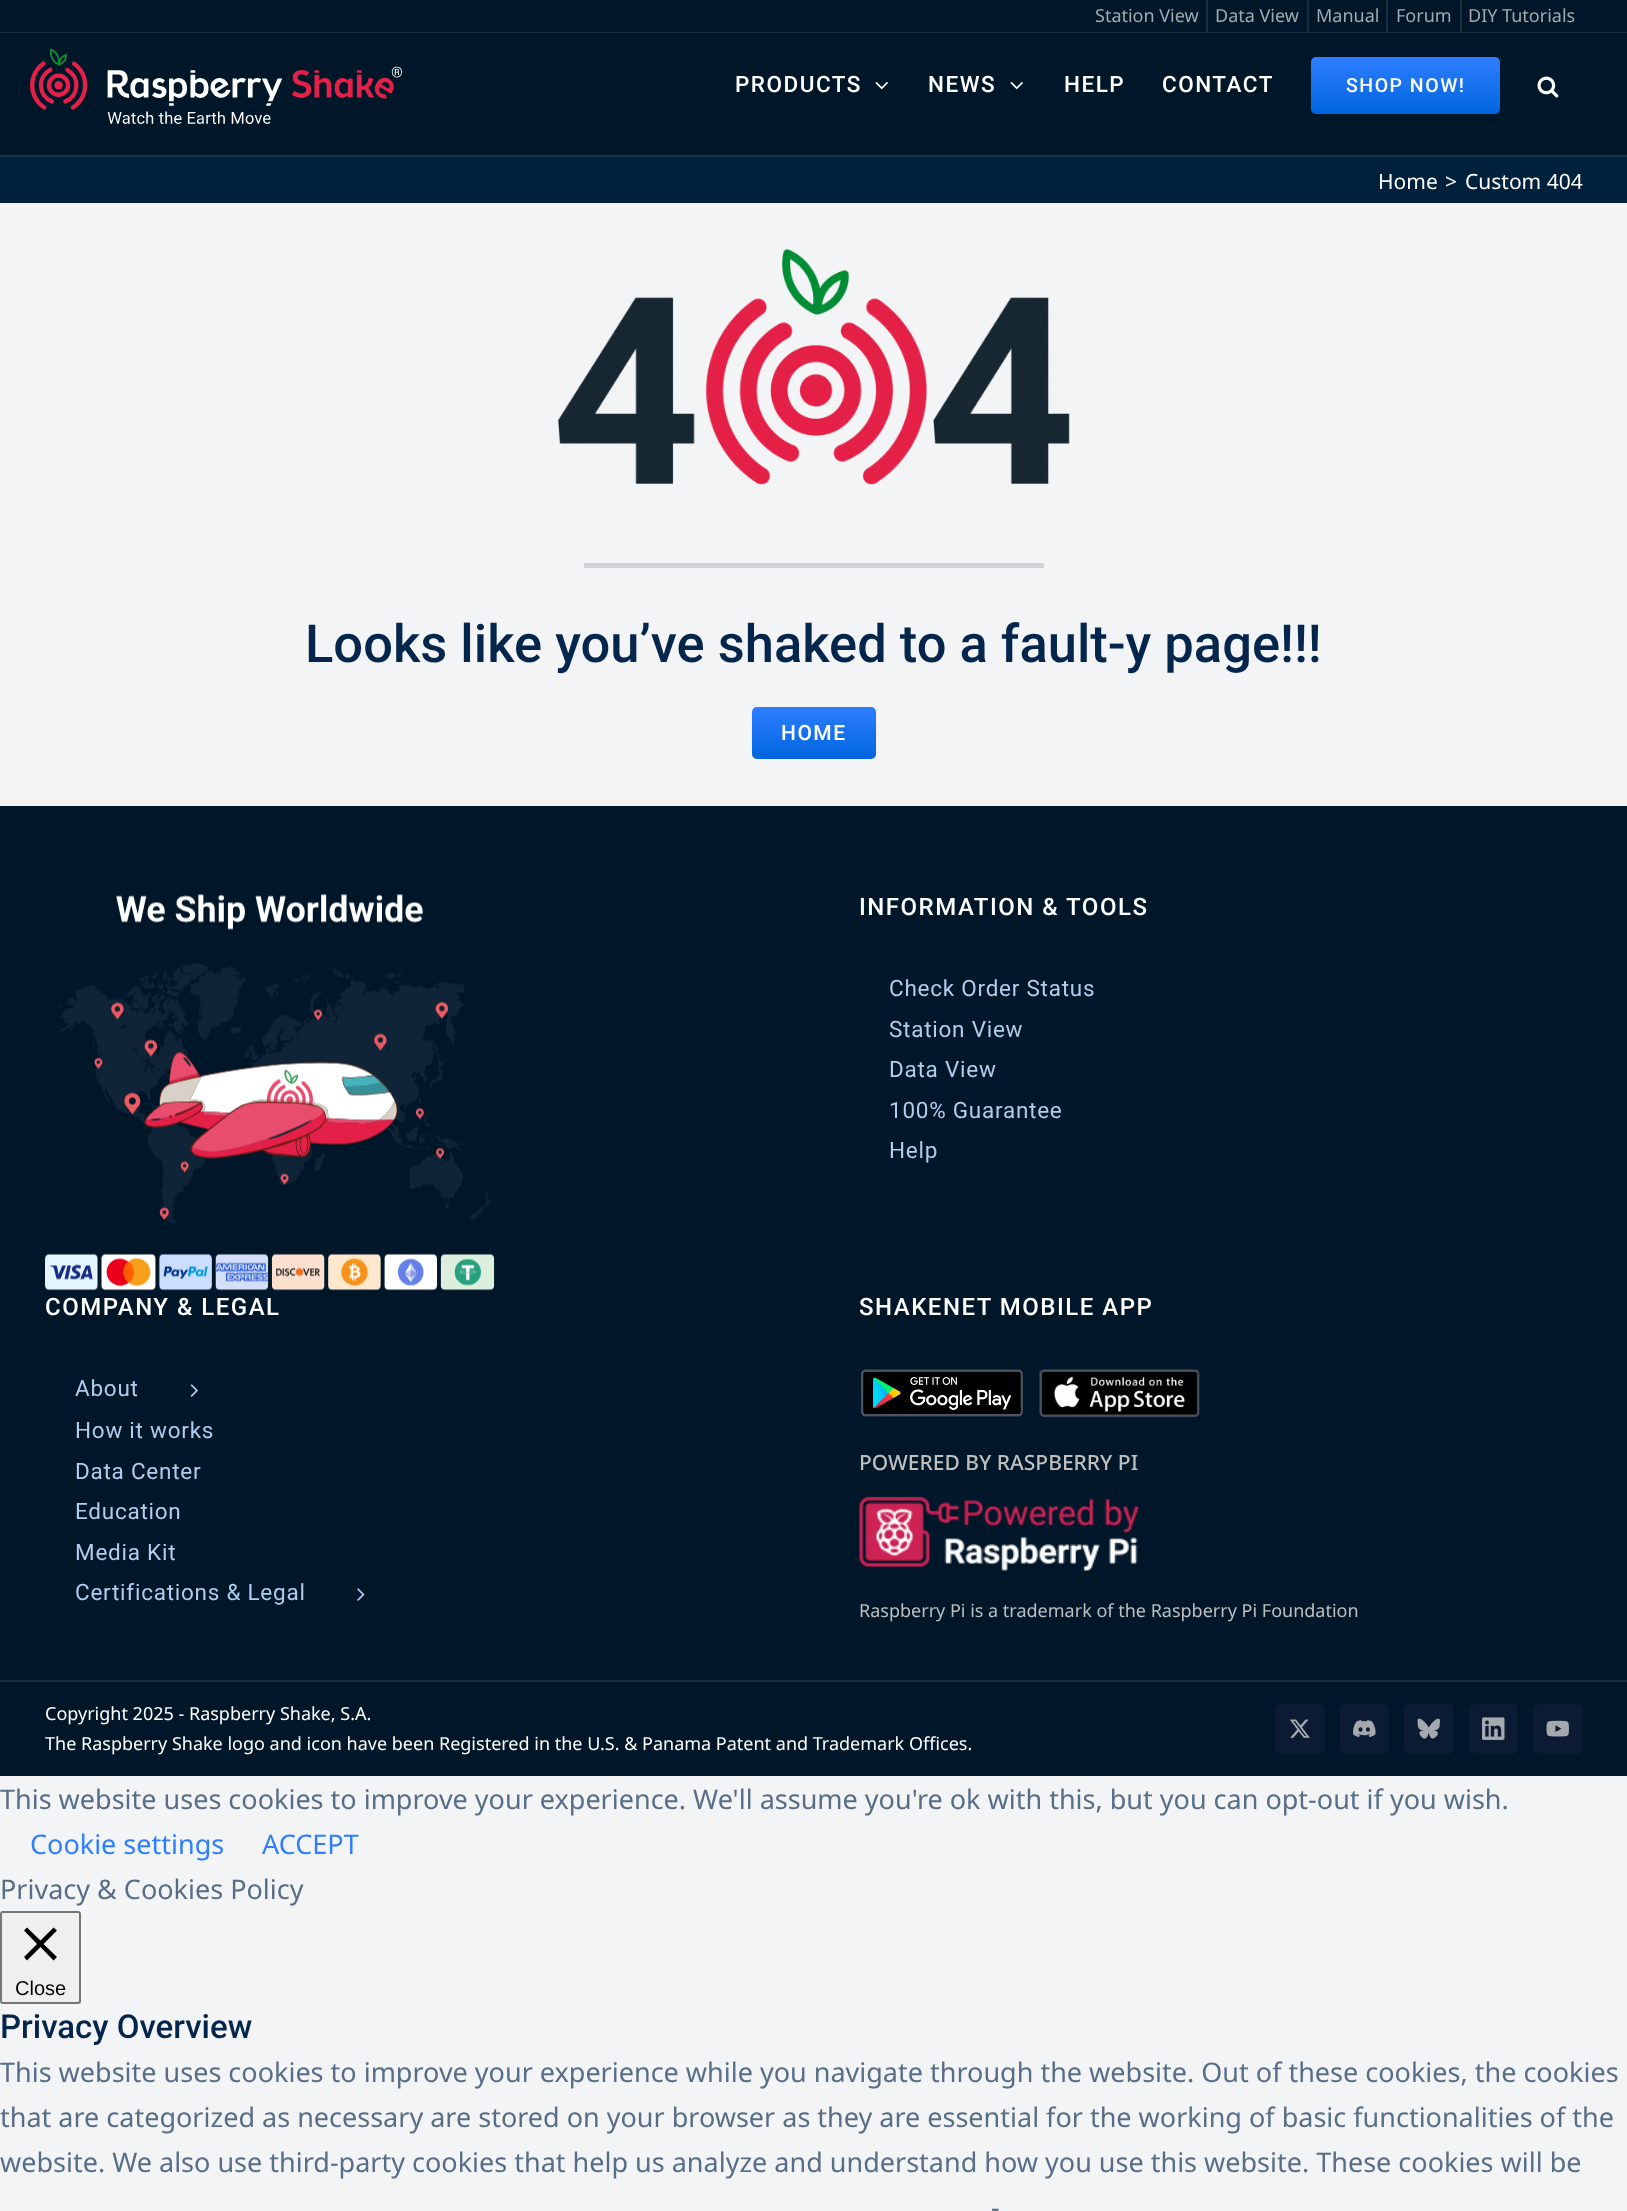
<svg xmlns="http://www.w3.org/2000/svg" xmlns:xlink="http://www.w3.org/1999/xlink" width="1627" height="2211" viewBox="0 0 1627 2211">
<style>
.cls-1{font:18px Noto Sans;fill:#a3a9ad}
.cls-2{font:500 22.5px Roboto;letter-spacing:1.5px;fill:#ffffff}
.cls-3{font:500 19.5px Roboto;letter-spacing:1.5px;fill:#ffffff}
.cls-4{font:21px Noto Sans;fill:#ffffff}
.cls-5{font:500 52.5px Roboto;fill:#05264c}
.cls-6{font:500 21px Roboto;letter-spacing:1.5px;fill:#ffffff}
.cls-7{font:500 24px Roboto;letter-spacing:1.5px;fill:#ffffff}
.cls-8{font:22.5px Roboto;letter-spacing:0.75px;fill:#b0cdeb}
.cls-9{font:500 21px Noto Sans;fill:#bfbfbf}
.cls-10{font:18px Noto Sans;fill:#bfbfbf}
.cls-11{font:18px Noto Sans;fill:#ffffff}
.cls-12{font:27px Noto Sans;fill:#586e87}
.cls-13{font:27px Noto Sans;fill:#2e7eff}
.cls-14{font:20px Liberation Sans;fill:#000000}
.cls-15{font:500 33px Roboto;fill:#05264c}
</style>
<defs>
<linearGradient id="g1" gradientUnits="userSpaceOnUse" x1="1406" y1="57" x2="1406" y2="114"><stop offset="0" stop-color="#2e7eff"/><stop offset="1" stop-color="#0065de"/></linearGradient>
<linearGradient id="g2" gradientUnits="userSpaceOnUse" x1="814" y1="707" x2="814" y2="759"><stop offset="0" stop-color="#2e7eff"/><stop offset="1" stop-color="#0065de"/></linearGradient>
</defs>
<rect width="100%" height="100%" fill="#f3f4f5"/>
<rect fill="#00172a" x="0" y="0" width="1627" height="32"/>
<rect fill="#1a2e3f" x="0" y="32" width="1627" height="1"/>
<rect fill="#1a2e3f" x="1206" y="0" width="2" height="32"/>
<rect fill="#1a2e3f" x="1307" y="0" width="2" height="32"/>
<rect fill="#1a2e3f" x="1386" y="0" width="2" height="32"/>
<rect fill="#1a2e3f" x="1460" y="0" width="2" height="32"/>
<rect fill="#00172a" x="0" y="33" width="1627" height="122"/>
<rect fill="#1a2e3f" x="0" y="155" width="1627" height="1"/>
<image xlink:href="image0.png" x="30" y="48" width="372" height="76"/>
<image xlink:href="image1.png" x="875" y="82" width="13" height="8"/>
<image xlink:href="image1.png" x="1010" y="82" width="13" height="8"/>
<rect fill="url(#g1)" x="1311" y="57" width="189" height="57" rx="5"/>
<image xlink:href="image2.png" x="1537" y="76" width="22" height="22"/>
<rect fill="#00213c" x="0" y="157" width="1627" height="46"/>
<rect fill="#1a3750" x="0" y="156" width="1627" height="1"/>
<image xlink:href="image3.png" x="558" y="249" width="512" height="236"/>
<rect fill="#d1d4d6" x="584" y="563" width="460" height="5"/>
<rect fill="url(#g2)" x="752" y="707" width="124" height="52" rx="5"/>
<rect fill="#00172a" x="0" y="806" width="1627" height="874"/>
<image xlink:href="image4.png" x="45" y="894" width="450" height="397"/>
<image xlink:href="image5.png" x="190" y="1384" width="8" height="13"/>
<image xlink:href="image6.png" x="357" y="1588" width="8" height="13"/>
<image xlink:href="image7.png" x="861" y="1369" width="162" height="48"/>
<image xlink:href="image8.png" x="1039" y="1369" width="161" height="49"/>
<image xlink:href="image9.png" x="859" y="1497" width="280" height="74"/>
<rect fill="#00172a" x="0" y="1682" width="1627" height="94"/>
<rect fill="#1a2e3f" x="0" y="1680" width="1627" height="2"/>
<rect fill="#0b1b33" stroke="#0b1b33" stroke-width="2" x="1276" y="1705" width="48" height="48" rx="5"/>
<image xlink:href="image10.png" x="1289" y="1719" width="21" height="19"/>
<rect fill="#0b1b33" stroke="#0b1b33" stroke-width="2" x="1341" y="1705" width="47" height="48" rx="5"/>
<image xlink:href="image11.png" x="1353" y="1720" width="23" height="18"/>
<rect fill="#0b1b33" stroke="#0b1b33" stroke-width="2" x="1405" y="1705" width="48" height="48" rx="5"/>
<image xlink:href="image12.png" x="1417" y="1718" width="23" height="21"/>
<rect fill="#0b1b33" stroke="#0b1b33" stroke-width="2" x="1470" y="1705" width="47" height="48" rx="5"/>
<image xlink:href="image13.png" x="1482" y="1717" width="23" height="23"/>
<rect fill="#0b1b33" stroke="#0b1b33" stroke-width="2" x="1534" y="1705" width="48" height="48" rx="5"/>
<image xlink:href="image14.png" x="1546" y="1720" width="23" height="17"/>
<rect fill="#efefef" stroke="#767676" stroke-width="2" x="1" y="1912" width="79" height="91" rx="2"/>
<path fill="#000000" d="M57 1930.5L53.5 1927.5L40.5 1940.5L27 1927.5L24 1930.5L37 1944L24 1957L27 1960.5L40.5 1947L53.5 1960.5L57 1957L43.5 1944Z"/>
<text class="cls-1" x="1095" y="22">Station View</text>
<text class="cls-1" x="1215" y="22">Data View</text>
<text class="cls-1" x="1316" y="22">Manual</text>
<text class="cls-1" x="1396" y="22">Forum</text>
<text class="cls-1" x="1468" y="22">DIY Tutorials</text>
<text class="cls-2" x="735" y="92">PRODUCTS</text>
<text class="cls-2" x="928" y="92">NEWS</text>
<text class="cls-2" x="1064" y="92">HELP</text>
<text class="cls-2" x="1162" y="92">CONTACT</text>
<text class="cls-3" x="1346" y="92">SHOP NOW!</text>
<text class="cls-4" x="1378" y="189">Home</text>
<text class="cls-4" x="1445" y="189">&gt;</text>
<text class="cls-4" x="1465" y="189">Custom 404</text>
<text class="cls-5" x="305" y="662">Looks like you’ve shaked to a fault-y page!!!</text>
<text class="cls-6" x="781" y="740">HOME</text>
<text class="cls-7" x="859" y="915">INFORMATION &amp; TOOLS</text>
<text class="cls-8"><tspan x="889" y="996">Check Order Status</tspan><tspan x="889" y="1037">Station View</tspan><tspan x="889" y="1077">Data View</tspan><tspan x="889" y="1118">100% Guarantee</tspan><tspan x="889" y="1158">Help</tspan></text>
<text class="cls-7" x="45" y="1315">COMPANY &amp; LEGAL</text>
<text class="cls-8"><tspan x="75" y="1396">About</tspan><tspan x="75" y="1438">How it works</tspan><tspan x="75" y="1479">Data Center</tspan><tspan x="75" y="1519">Education</tspan><tspan x="75" y="1560">Media Kit</tspan><tspan x="75" y="1600">Certifications &amp; Legal</tspan></text>
<text class="cls-7" x="859" y="1315">SHAKENET MOBILE APP</text>
<text class="cls-9" x="859" y="1470">POWERED BY RASPBERRY PI</text>
<text class="cls-10" x="859" y="1617">Raspberry Pi is a trademark of the Raspberry Pi Foundation</text>
<text class="cls-11"><tspan x="45" y="1720">Copyright 2025 - Raspberry Shake, S.A.</tspan><tspan x="45" y="1750">The Raspberry Shake logo and icon have been Registered in the U.S. &amp; Panama Patent and Trademark Offices.</tspan></text>
<text class="cls-12" x="0" y="1809">This website uses cookies to improve your experience. We'll assume you're ok with this, but you can opt-out if you wish.</text>
<text class="cls-13" x="30" y="1854">Cookie settings</text>
<text class="cls-13" x="262" y="1854">ACCEPT</text>
<text class="cls-12" x="0" y="1899">Privacy &amp; Cookies Policy</text>
<text class="cls-14" x="15" y="1995">Close</text>
<text class="cls-15" x="0" y="2038">Privacy Overview</text>
<text class="cls-12"><tspan x="0" y="2082">This website uses cookies to improve your experience while you navigate through the website. Out of these cookies, the cookies</tspan><tspan x="0" y="2127">that are categorized as necessary are stored on your browser as they are essential for the working of basic functionalities of the</tspan><tspan x="0" y="2172">website. We also use third-party cookies that help us analyze and understand how you use this website. These cookies will be</tspan></text>
<text class="cls-12" x="991" y="2217">-</text>
</svg>
